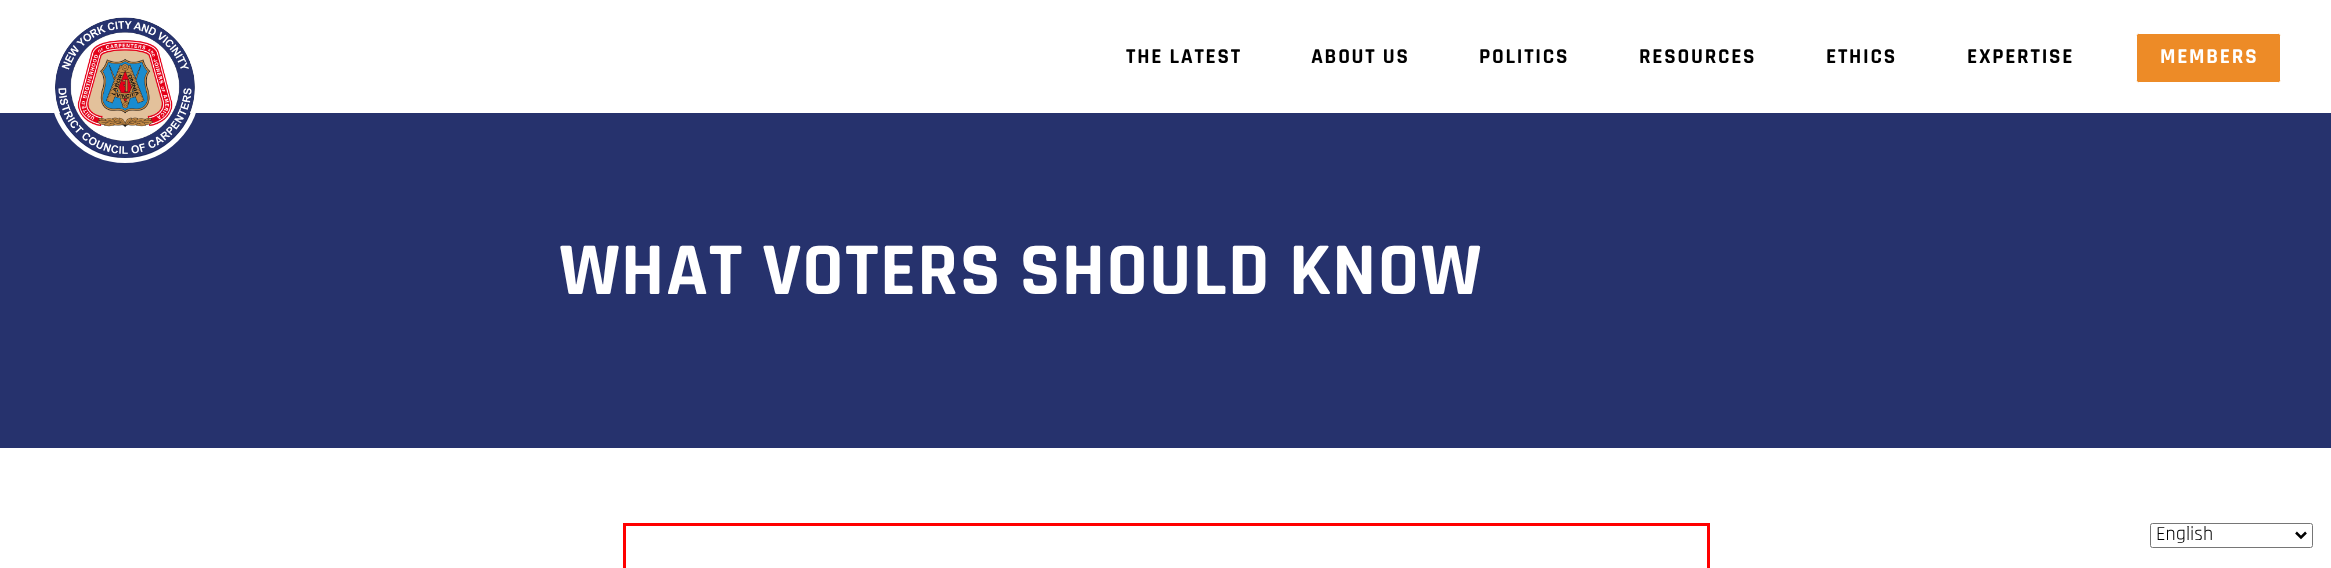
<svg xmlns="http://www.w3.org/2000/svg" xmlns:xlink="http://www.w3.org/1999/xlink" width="2331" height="568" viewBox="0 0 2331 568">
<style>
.cls-1{font:bold 21.25px Rajdhani;letter-spacing:1.75px;fill:#000000}
.cls-2{font:bold 21.25px Rajdhani;letter-spacing:1.75px;fill:#ffffff}
.cls-3{font:bold 75px Rajdhani;letter-spacing:1.5px;fill:#ffffff}
.cls-4{font:20px Rajdhani;fill:#000000}
</style>
<rect width="100%" height="100%" fill="#ffffff"/>
<rect fill="#26326d" x="0" y="113" width="2331" height="335"/>
<circle fill="none" stroke="#ffffff" stroke-width="5" cx="125" cy="88" r="72.5"/>
<image xlink:href="image0.png" x="55" y="17" width="140" height="141"/>
<rect fill="#ed8b27" stroke="#ffffff" x="2136.5" y="33.5" width="144" height="49" rx="2"/>
<rect fill="none" stroke="#ff0000" stroke-width="3" x="624.5" y="524.5" width="1084" height="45"/>
<rect fill="none" stroke="#767676" x="2150.5" y="523.5" width="162" height="24" rx="2"/>
<path fill="none" stroke="#000000" stroke-width="2.5" d="M2296 532.5L2301 537.5L2306 532.5"/>
<text class="cls-1" x="1126" y="63">THE LATEST</text>
<text class="cls-1" x="1311" y="63">ABOUT US</text>
<text class="cls-1" x="1479" y="63">POLITICS</text>
<text class="cls-1" x="1639" y="63">RESOURCES</text>
<text class="cls-1" x="1826" y="63">ETHICS</text>
<text class="cls-1" x="1967" y="63">EXPERTISE</text>
<text class="cls-2" x="2160" y="63">MEMBERS</text>
<text class="cls-3" x="559" y="294">WHAT VOTERS SHOULD KNOW</text>
<text class="cls-4" x="2156" y="540">English</text>
</svg>
